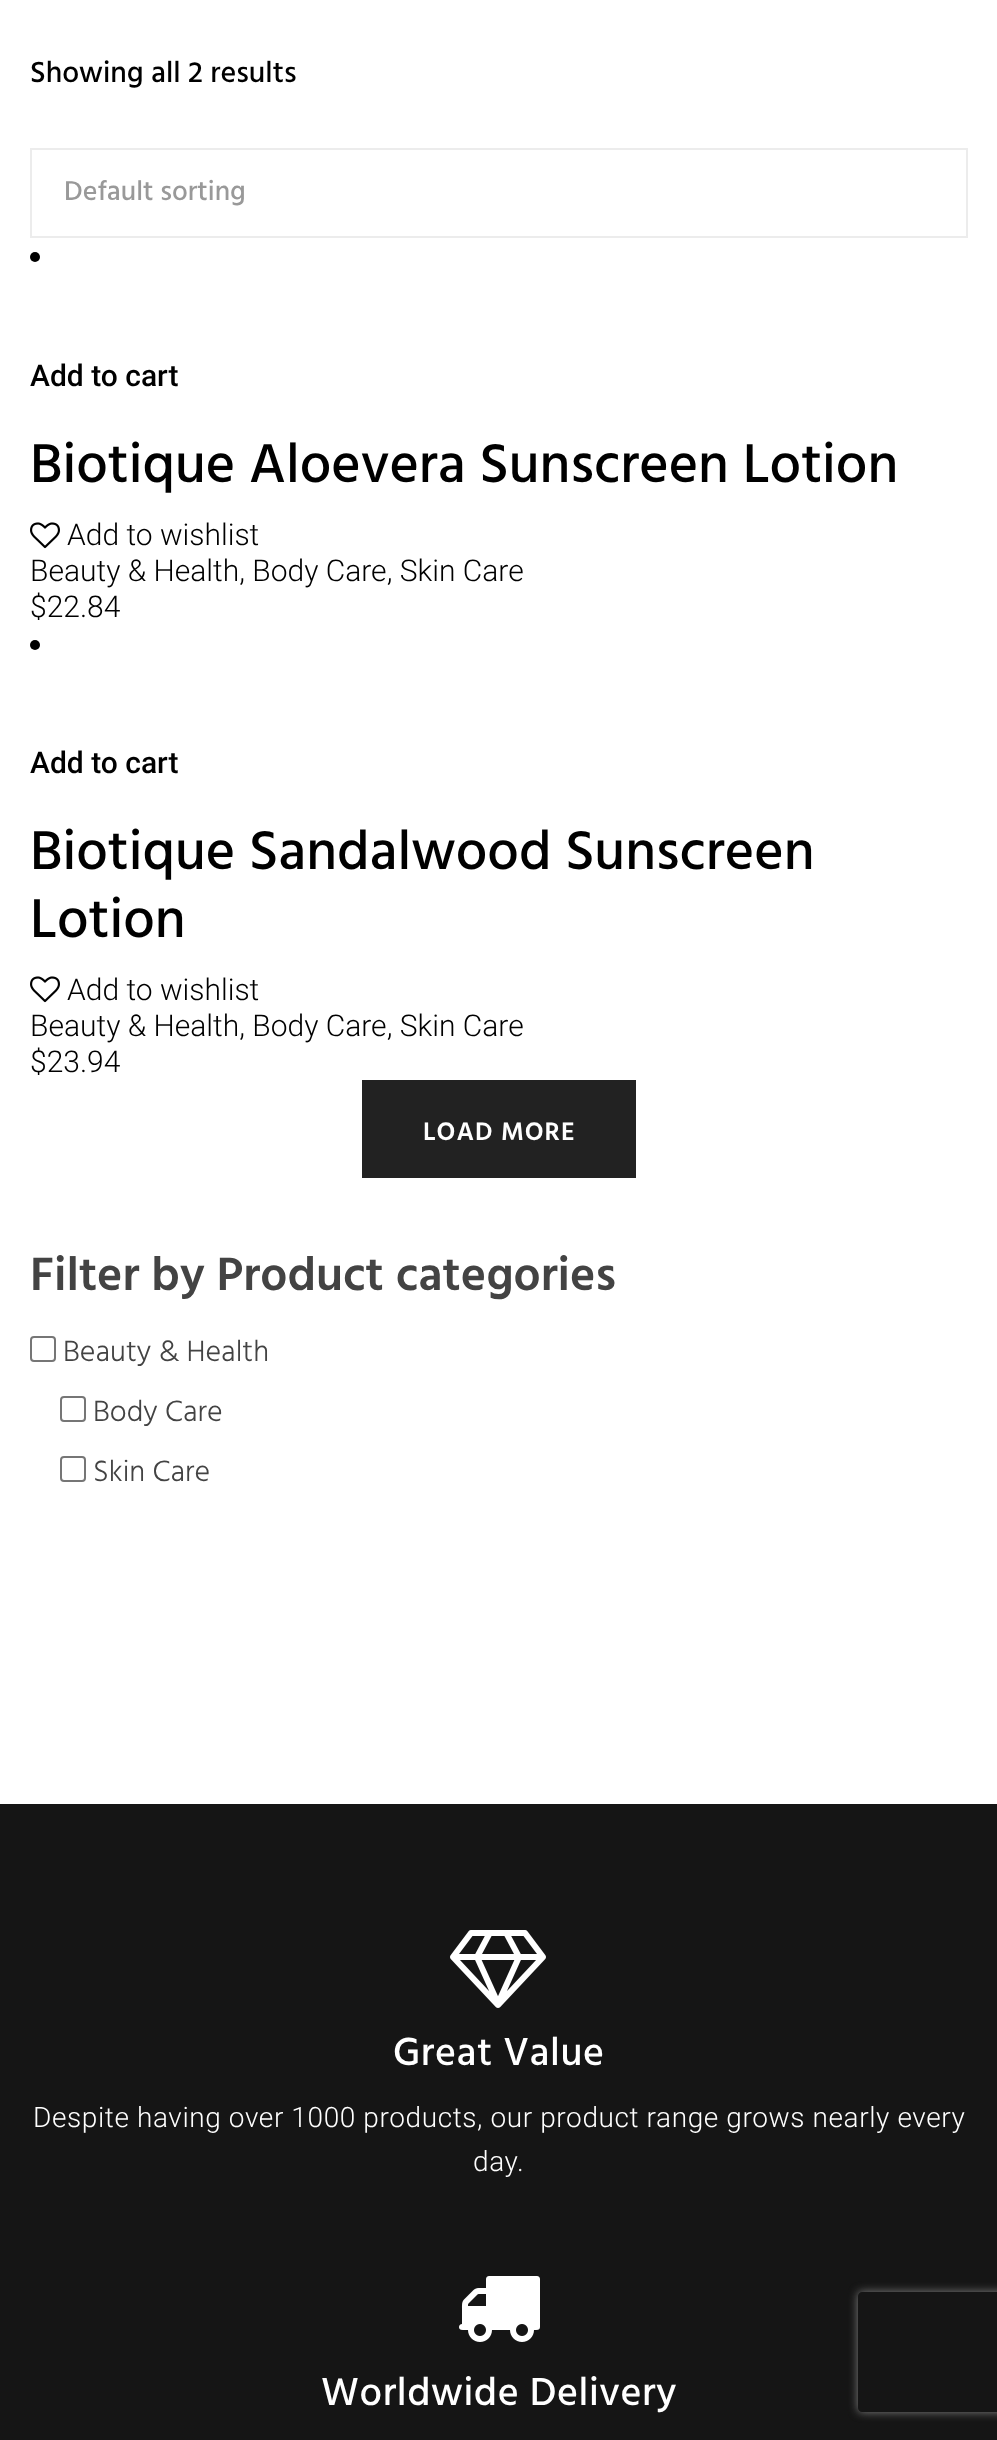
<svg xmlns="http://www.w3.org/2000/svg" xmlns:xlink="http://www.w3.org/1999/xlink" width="997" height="2440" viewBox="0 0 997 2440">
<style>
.cls-1{font:500 30px Hind;fill:#000000}
.cls-2{font:500 28px Hind;fill:#999999}
.cls-3{font:500 30px Roboto;fill:#000000}
.cls-4{font:500 56px Hind;fill:#000000}
.cls-5{font:300 30px Roboto;fill:#000000}
.cls-6{font:600 26px Hind;letter-spacing:1px;fill:#ffffff}
.cls-7{font:600 48px Hind;fill:#434343}
.cls-8{font:300 30px Hind;fill:#434343}
.cls-9{font:500 40px Hind;letter-spacing:0.6px;fill:#ffffff}
.cls-10{font:300 28px Roboto;letter-spacing:0.6px;fill:#ffffff}
</style>
<defs>
<clipPath id="clip1"><path d="M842 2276H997V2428H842ZM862 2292H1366C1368 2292 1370 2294 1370 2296V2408C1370 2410 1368 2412 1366 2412H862C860 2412 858 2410 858 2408V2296C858 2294 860 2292 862 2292Z" clip-rule="evenodd"/></clipPath>
</defs>
<rect width="100%" height="100%" fill="#ffffff"/>
<rect fill="none" stroke="#ececec" stroke-width="2" x="31" y="149" width="936" height="88"/>
<circle fill="#000000" cx="35" cy="257" r="5"/>
<image xlink:href="image0.png" x="30" y="522" width="30" height="27"/>
<circle fill="#000000" cx="35" cy="645" r="5"/>
<image xlink:href="image0.png" x="30" y="976" width="30" height="27"/>
<rect fill="#222222" x="362" y="1080" width="274" height="98"/>
<rect fill="none" stroke="#767676" stroke-width="2" x="31" y="1337" width="24" height="24" rx="3"/>
<rect fill="none" stroke="#767676" stroke-width="2" x="61" y="1397" width="24" height="24" rx="3"/>
<rect fill="none" stroke="#767676" stroke-width="2" x="61" y="1457" width="24" height="24" rx="3"/>
<rect fill="#151515" x="0" y="1804" width="997" height="636"/>
<image xlink:href="image1.png" x="450" y="1930" width="96" height="78"/>
<image xlink:href="image2.png" x="459" y="2276" width="81" height="66"/>
<g clip-path="url(#clip1)">
<rect fill="#808080" filter="blur(5px)" x="858" y="2292" width="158" height="120" rx="4"/>
</g>
<text class="cls-1" x="30" y="82">Showing all 2 results</text>
<text class="cls-2" x="64" y="200">Default sorting</text>
<text class="cls-3" x="30" y="386">Add to cart</text>
<text class="cls-4" x="30" y="482">Biotique Aloevera Sunscreen Lotion</text>
<text class="cls-5" x="67" y="545">Add to wishlist</text>
<text class="cls-5"><tspan x="30" y="581">Beauty &amp; Health, Body Care, Skin Care</tspan><tspan x="30" y="617">$22.84</tspan></text>
<text class="cls-3" x="30" y="773">Add to cart</text>
<text class="cls-4"><tspan x="30" y="869">Biotique Sandalwood Sunscreen</tspan><tspan x="30" y="937">Lotion</tspan></text>
<text class="cls-5" x="67" y="1000">Add to wishlist</text>
<text class="cls-5"><tspan x="30" y="1036">Beauty &amp; Health, Body Care, Skin Care</tspan><tspan x="30" y="1072">$23.94</tspan></text>
<text class="cls-6" x="423" y="1140">LOAD MORE</text>
<text class="cls-7" x="30" y="1290">Filter by Product categories</text>
<text class="cls-8" x="63" y="1361">Beauty &amp; Health</text>
<text class="cls-8" x="93" y="1421">Body Care</text>
<text class="cls-8" x="93" y="1481">Skin Care</text>
<text class="cls-9" x="393" y="2065">Great Value</text>
<text class="cls-10" x="33" y="2127">Despite having over 1000 products, our product range grows nearly every</text>
<text class="cls-10" x="473" y="2171">day.</text>
<text class="cls-9" x="321" y="2405">Worldwide Delivery</text>
</svg>
